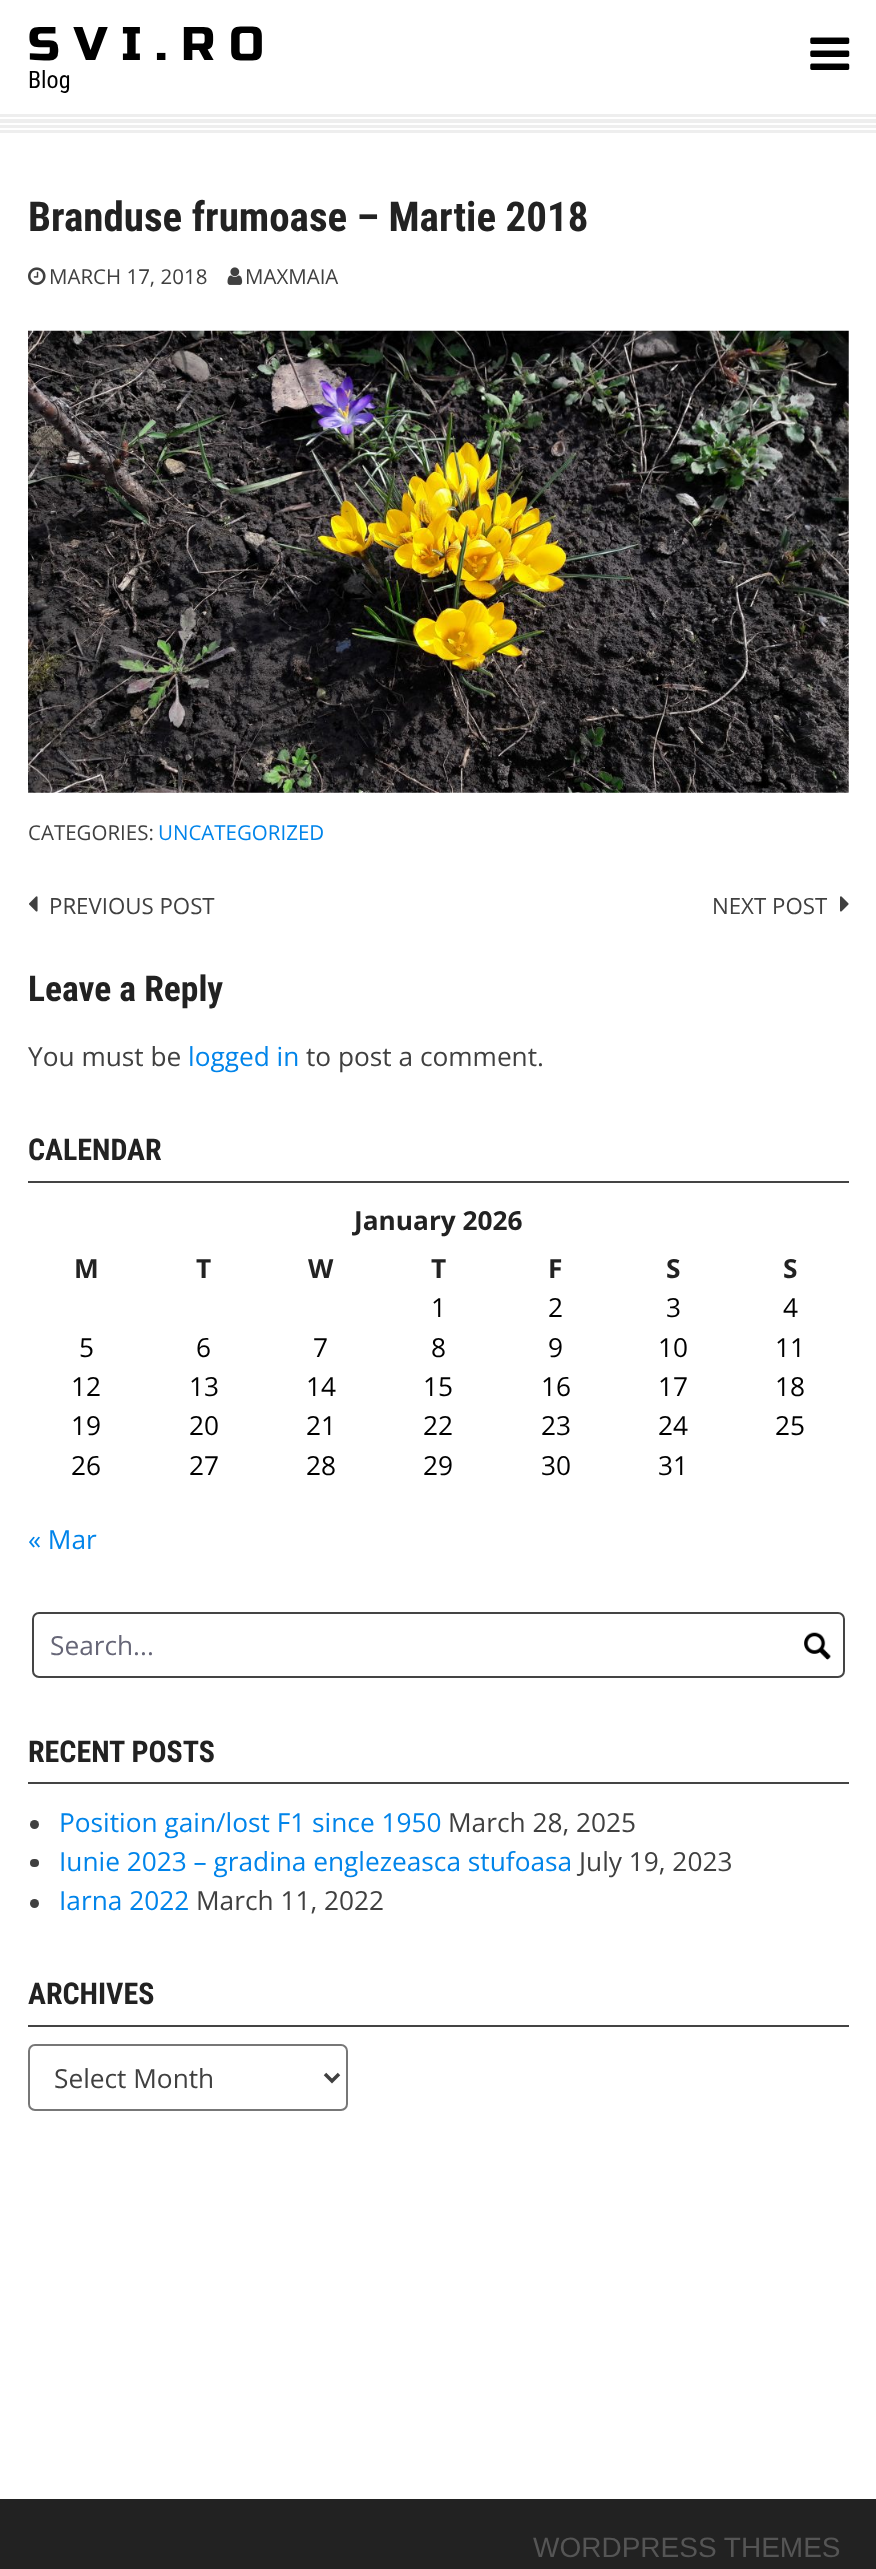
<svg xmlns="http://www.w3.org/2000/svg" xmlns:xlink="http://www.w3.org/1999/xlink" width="876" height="2569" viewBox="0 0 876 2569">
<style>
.cls-1{font:47.25px Russo One;fill:#000000}
.cls-2{font:24px Roboto Condensed;fill:#000000}
.cls-3{font:bold 41px Roboto Condensed;fill:#222222}
.cls-4{font:20.5px Open Sans;fill:#404040}
.cls-5{font:20.5px Open Sans;fill:#0084ea}
.cls-6{font:22.25px Open Sans;fill:#404040}
.cls-7{font:bold 35.5px Roboto Condensed;fill:#222222}
.cls-8{font:26.25px Open Sans;fill:#404040}
.cls-9{font:26.25px Open Sans;fill:#0084ea}
.cls-10{font:bold 30px Roboto Condensed;fill:#222222}
.cls-11{font:bold 26.25px Open Sans;fill:#222222}
.cls-12{font:26.25px Open Sans;fill:#000000}
.cls-13{font:26.25px Open Sans;fill:#666677}
.cls-14{font:28px Liberation Sans;fill:#555555}
</style>
<rect width="100%" height="100%" fill="#ffffff"/>
<image xlink:href="image0.png" x="810" y="37" width="40" height="33"/>
<rect fill="#eeeeee" x="0" y="114" width="876" height="19"/>
<rect fill="#ffffff" x="0" y="117" width="876" height="2"/>
<rect fill="#ffffff" x="0" y="123" width="876" height="2"/>
<rect fill="#ffffff" x="0" y="128" width="876" height="2"/>
<image xlink:href="image1.png" x="28" y="267" width="18" height="18"/>
<image xlink:href="image2.png" x="227" y="267" width="16" height="18"/>
<image xlink:href="image3.png" x="28" y="330" width="821" height="463"/>
<image xlink:href="image4.png" x="29" y="896" width="9" height="16"/>
<image xlink:href="image5.png" x="840" y="896" width="9" height="16"/>
<rect fill="#444444" x="28" y="1181" width="821" height="2"/>
<rect fill="none" stroke="#444444" stroke-width="2" x="33" y="1613" width="811" height="64" rx="6"/>
<image xlink:href="image6.png" x="804" y="1632" width="27" height="28"/>
<rect fill="#444444" x="28" y="1782" width="821" height="2"/>
<circle fill="#404040" cx="34.5" cy="1824.5" r="4.5"/>
<rect fill="#404040" x="30" y="1859" width="9" height="8" rx="4"/>
<circle fill="#404040" cx="34.5" cy="1903.5" r="4.5"/>
<rect fill="#444444" x="28" y="2025" width="821" height="2"/>
<rect fill="none" stroke="#777777" stroke-width="2" x="29" y="2045" width="318" height="65" rx="6"/>
<path fill="none" stroke="#404040" stroke-width="3.5" d="M325 2074L332 2081L339 2074"/>
<rect fill="#222222" x="0" y="2499" width="876" height="70"/>
<text class="cls-1" x="28" y="60">S V I . R O</text>
<text class="cls-2" x="28" y="88">Blog</text>
<text class="cls-3" x="28" y="231">Branduse frumoase – Martie 2018</text>
<text class="cls-4" x="49" y="284">MARCH 17, 2018</text>
<text class="cls-4" x="245" y="284">MAXMAIA</text>
<text class="cls-4" x="28" y="840">CATEGORIES:</text>
<text class="cls-5" x="158" y="840">UNCATEGORIZED</text>
<text class="cls-6" x="49" y="914">PREVIOUS POST</text>
<text class="cls-6" x="712" y="914">NEXT POST</text>
<text class="cls-7" x="28" y="1001">Leave a Reply</text>
<text class="cls-8" x="28" y="1066">You must be</text>
<text class="cls-9" x="188" y="1066">logged in</text>
<text class="cls-8" x="306" y="1066">to post a comment.</text>
<text class="cls-10" x="28" y="1160">CALENDAR</text>
<text class="cls-11" x="354" y="1230">January 2026</text>
<text class="cls-11" x="74" y="1278">M</text>
<text class="cls-11" x="196" y="1278">T</text>
<text class="cls-11" x="308" y="1278">W</text>
<text class="cls-11" x="431" y="1278">T</text>
<text class="cls-11" x="548" y="1278">F</text>
<text class="cls-11" x="666" y="1278">S</text>
<text class="cls-11" x="783" y="1278">S</text>
<text class="cls-12" x="431" y="1317">1</text>
<text class="cls-12" x="548" y="1317">2</text>
<text class="cls-12" x="666" y="1317">3</text>
<text class="cls-12" x="783" y="1317">4</text>
<text class="cls-12" x="79" y="1357">5</text>
<text class="cls-12" x="196" y="1357">6</text>
<text class="cls-12" x="313" y="1357">7</text>
<text class="cls-12" x="431" y="1357">8</text>
<text class="cls-12" x="548" y="1357">9</text>
<text class="cls-12" x="658" y="1357">10</text>
<text class="cls-12" x="775" y="1357">11</text>
<text class="cls-12" x="71" y="1396">12</text>
<text class="cls-12" x="189" y="1396">13</text>
<text class="cls-12" x="306" y="1396">14</text>
<text class="cls-12" x="423" y="1396">15</text>
<text class="cls-12" x="541" y="1396">16</text>
<text class="cls-12" x="658" y="1396">17</text>
<text class="cls-12" x="775" y="1396">18</text>
<text class="cls-12" x="71" y="1435">19</text>
<text class="cls-12" x="189" y="1435">20</text>
<text class="cls-12" x="306" y="1435">21</text>
<text class="cls-12" x="423" y="1435">22</text>
<text class="cls-12" x="541" y="1435">23</text>
<text class="cls-12" x="658" y="1435">24</text>
<text class="cls-12" x="775" y="1435">25</text>
<text class="cls-12" x="71" y="1475">26</text>
<text class="cls-12" x="189" y="1475">27</text>
<text class="cls-12" x="306" y="1475">28</text>
<text class="cls-12" x="423" y="1475">29</text>
<text class="cls-12" x="541" y="1475">30</text>
<text class="cls-12" x="658" y="1475">31</text>
<text class="cls-9" x="28" y="1549">« Mar</text>
<text class="cls-13" x="50" y="1655">Search...</text>
<text class="cls-10" x="28" y="1762">RECENT POSTS</text>
<text class="cls-9" x="59" y="1832">Position gain/lost F1 since 1950</text>
<text class="cls-8" x="448" y="1832">March 28, 2025</text>
<text class="cls-9" x="59" y="1871">Iunie 2023 – gradina englezeasca stufoasa</text>
<text class="cls-8" x="579" y="1871">July 19, 2023</text>
<text class="cls-9" x="59" y="1910">Iarna 2022</text>
<text class="cls-8" x="196" y="1910">March 11, 2022</text>
<text class="cls-10" x="28" y="2004">ARCHIVES</text>
<text class="cls-8" x="54" y="2088">Select Month</text>
<text class="cls-14" x="533" y="2557">WORDPRESS THEMES</text>
</svg>
